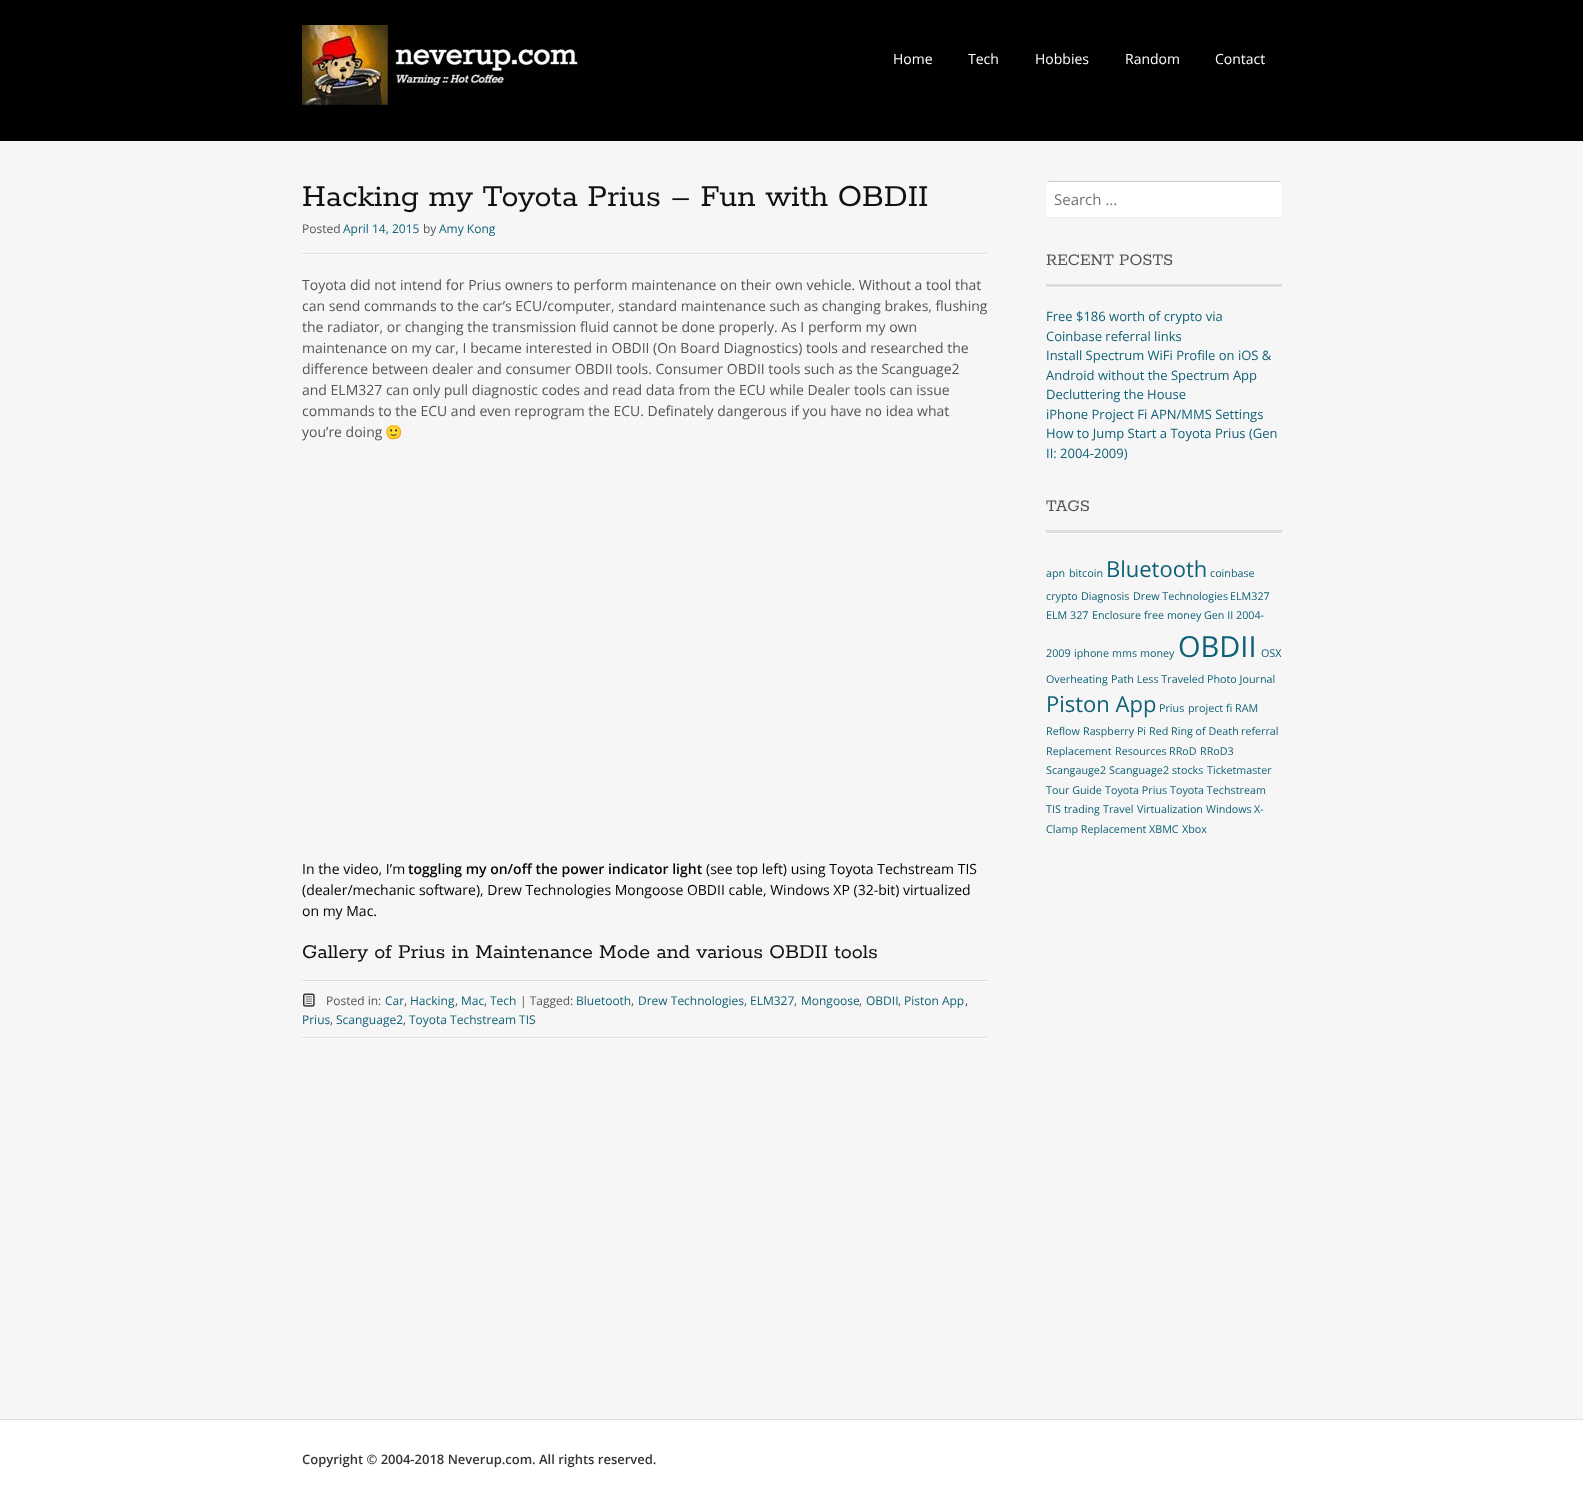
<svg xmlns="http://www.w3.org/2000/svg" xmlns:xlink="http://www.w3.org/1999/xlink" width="1583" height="1499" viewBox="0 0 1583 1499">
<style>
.cls-1{font:14px Open Sans;fill:#ffffff}
.cls-2{font:34px Rokkitt;fill:#111111}
.cls-3{font:12px Open Sans;fill:#555555}
.cls-4{font:12px Open Sans;fill:#106177}
.cls-5{font:14px Open Sans;fill:#555555}
.cls-6{font:14px Noto Color Emoji;fill:#555555}
.cls-7{font:14px Open Sans;fill:#000000}
.cls-8{font:600 14px Open Sans;fill:#000000}
.cls-9{font:22px Rokkitt;fill:#111111}
.cls-10{font:15px Open Sans;fill:#757575}
.cls-11{font:18px Rokkitt;fill:#555555}
.cls-12{font:13px Open Sans;fill:#106177}
.cls-13{font:10.75px Open Sans;fill:#106177}
.cls-14{font:22px Open Sans;fill:#106177}
.cls-15{font:29px Open Sans;fill:#106177}
.cls-16{font:600 13px Open Sans;fill:#333333}
</style>
<rect width="100%" height="100%" fill="#f6f6f6"/>
<rect fill="#000000" x="0" y="0" width="1583" height="141"/>
<image xlink:href="image0.png" x="302" y="25" width="278" height="80"/>
<rect fill="#ffffff" x="302" y="254" width="686" height="1"/>
<rect fill="#dddddd" x="302" y="253" width="686" height="1"/>
<rect fill="#ffffff" x="302" y="981" width="686" height="1"/>
<rect fill="#dddddd" x="302" y="980" width="686" height="1"/>
<image xlink:href="image1.png" x="303" y="993" width="12" height="14"/>
<rect fill="#ffffff" x="302" y="1038" width="686" height="1"/>
<rect fill="#dddddd" x="302" y="1037" width="686" height="1"/>
<path fill="#f0f0f0" d="M1046 214C1046 216 1047 218 1049 218H1279C1281 218 1282 216 1282 214C1282 216 1281 217 1279 217H1049C1047 217 1046 216 1046 214Z"/>
<rect fill="#ffffff" x="1046" y="181" width="236" height="36" rx="3"/>
<path fill="#cccccc" d="M1049 182H1280L1282 183V185C1282 183 1281 181 1279 181H1049C1047 181 1046 183 1046 185C1046 183 1047 182 1049 182Z"/>
<rect fill="#ffffff" x="1046" y="287" width="236" height="1"/>
<rect fill="#dddddd" x="1046" y="284" width="236" height="3"/>
<rect fill="#ffffff" x="1046" y="533" width="236" height="1"/>
<rect fill="#dddddd" x="1046" y="530" width="236" height="3"/>
<rect fill="#ffffff" x="0" y="1420" width="1583" height="79"/>
<rect fill="#dddddd" x="0" y="1419" width="1583" height="1"/>
<text class="cls-1" x="893" y="64">Home</text>
<text class="cls-1" x="968" y="64">Tech</text>
<text class="cls-1" x="1035" y="64">Hobbies</text>
<text class="cls-1" x="1125" y="64">Random</text>
<text class="cls-1" x="1215" y="64">Contact</text>
<text class="cls-2" x="302" y="206">Hacking my Toyota Prius – Fun with OBDII</text>
<text class="cls-3" x="302" y="233">Posted</text>
<text class="cls-4" x="343" y="233">April 14, 2015</text>
<text class="cls-3" x="423" y="233">by</text>
<text class="cls-4" x="439" y="233">Amy Kong</text>
<text class="cls-5"><tspan x="302" y="290">Toyota did not intend for Prius owners to perform maintenance on their own vehicle. Without a tool that</tspan><tspan x="302" y="311">can send commands to the car’s ECU/computer, standard maintenance such as changing brakes, flushing</tspan><tspan x="302" y="332">the radiator, or changing the transmission fluid cannot be done properly. As I perform my own</tspan><tspan x="302" y="353">maintenance on my car, I became interested in OBDII (On Board Diagnostics) tools and researched the</tspan><tspan x="302" y="374">difference between dealer and consumer OBDII tools. Consumer OBDII tools such as the Scanguage2</tspan><tspan x="302" y="395">and ELM327 can only pull diagnostic codes and read data from the ECU while Dealer tools can issue</tspan><tspan x="302" y="416">commands to the ECU and even reprogram the ECU. Definately dangerous if you have no idea what</tspan><tspan x="302" y="437">you’re doing</tspan></text>
<text class="cls-6" x="385" y="437">🙂</text>
<text class="cls-7" x="302" y="874">In the video, I’m</text>
<text class="cls-8" x="408" y="874">toggling my on/off the power indicator light</text>
<text class="cls-7" x="706" y="874">(see top left) using Toyota Techstream TIS</text>
<text class="cls-7"><tspan x="302" y="895">(dealer/mechanic software), Drew Technologies Mongoose OBDII cable, Windows XP (32-bit) virtualized</tspan><tspan x="302" y="916">on my Mac.</tspan></text>
<text class="cls-9" x="302" y="958">Gallery of Prius in Maintenance Mode and various OBDII tools</text>
<text class="cls-3" x="326" y="1005">Posted in:</text>
<text class="cls-4" x="385" y="1005">Car</text>
<text class="cls-3" x="404" y="1005">,</text>
<text class="cls-4" x="410" y="1005">Hacking</text>
<text class="cls-3" x="455" y="1005">,</text>
<text class="cls-4" x="461" y="1005">Mac</text>
<text class="cls-3" x="484" y="1005">,</text>
<text class="cls-4" x="490" y="1005">Tech</text>
<text class="cls-3" x="520" y="1005">| Tagged:</text>
<text class="cls-4" x="576" y="1005">Bluetooth</text>
<text class="cls-3" x="631" y="1005">,</text>
<text class="cls-4" x="638" y="1005">Drew Technologies</text>
<text class="cls-3" x="744" y="1005">,</text>
<text class="cls-4" x="750" y="1005">ELM327</text>
<text class="cls-3" x="794" y="1005">,</text>
<text class="cls-4" x="801" y="1005">Mongoose</text>
<text class="cls-3" x="859" y="1005">,</text>
<text class="cls-4" x="866" y="1005">OBDII</text>
<text class="cls-3" x="898" y="1005">,</text>
<text class="cls-4" x="904" y="1005">Piston App</text>
<text class="cls-3" x="965" y="1005">,</text>
<text class="cls-4" x="302" y="1024">Prius</text>
<text class="cls-3" x="330" y="1024">,</text>
<text class="cls-4" x="336" y="1024">Scanguage2</text>
<text class="cls-3" x="403" y="1024">,</text>
<text class="cls-4" x="409" y="1024">Toyota Techstream TIS</text>
<text class="cls-10" x="1054" y="205">Search …</text>
<text class="cls-11" x="1046" y="265">RECENT POSTS</text>
<text class="cls-12"><tspan x="1046" y="321">Free $186 worth of crypto via</tspan><tspan x="1046" y="341">Coinbase referral links</tspan><tspan x="1046" y="360">Install Spectrum WiFi Profile on iOS &amp;</tspan><tspan x="1046" y="380">Android without the Spectrum App</tspan><tspan x="1046" y="399">Decluttering the House</tspan><tspan x="1046" y="419">iPhone Project Fi APN/MMS Settings</tspan><tspan x="1046" y="438">How to Jump Start a Toyota Prius (Gen</tspan><tspan x="1046" y="458">II: 2004-2009)</tspan></text>
<text class="cls-11" x="1046" y="511">TAGS</text>
<text class="cls-13" x="1046" y="577">apn</text>
<text class="cls-13" x="1069" y="577">bitcoin</text>
<text class="cls-14" x="1106" y="577">Bluetooth</text>
<text class="cls-13" x="1210" y="577">coinbase</text>
<text class="cls-13" x="1046" y="600">crypto</text>
<text class="cls-13" x="1081" y="600">Diagnosis</text>
<text class="cls-13" x="1133" y="600">Drew Technologies</text>
<text class="cls-13" x="1230" y="600">ELM327</text>
<text class="cls-13" x="1046" y="619">ELM 327</text>
<text class="cls-13" x="1092" y="619">Enclosure</text>
<text class="cls-13" x="1144" y="619">free money</text>
<text class="cls-13" x="1204" y="619">Gen II 2004-</text>
<text class="cls-13" x="1046" y="657">2009</text>
<text class="cls-13" x="1074" y="657">iphone</text>
<text class="cls-13" x="1112" y="657">mms</text>
<text class="cls-13" x="1140" y="657">money</text>
<text class="cls-15" x="1178" y="657">OBDII</text>
<text class="cls-13" x="1261" y="657">OSX</text>
<text class="cls-13" x="1046" y="683">Overheating</text>
<text class="cls-13" x="1111" y="683">Path Less Traveled</text>
<text class="cls-13" x="1207" y="683">Photo Journal</text>
<text class="cls-14" x="1046" y="712">Piston App</text>
<text class="cls-13" x="1159" y="712">Prius</text>
<text class="cls-13" x="1188" y="712">project fi</text>
<text class="cls-13" x="1235" y="712">RAM</text>
<text class="cls-13" x="1046" y="735">Reflow</text>
<text class="cls-13" x="1083" y="735">Raspberry Pi</text>
<text class="cls-13" x="1149" y="735">Red Ring of Death</text>
<text class="cls-13" x="1241" y="735">referral</text>
<text class="cls-13" x="1046" y="755">Replacement</text>
<text class="cls-13" x="1115" y="755">Resources</text>
<text class="cls-13" x="1169" y="755">RRoD</text>
<text class="cls-13" x="1200" y="755">RRoD3</text>
<text class="cls-13" x="1046" y="774">Scangauge2</text>
<text class="cls-13" x="1109" y="774">Scanguage2</text>
<text class="cls-13" x="1172" y="774">stocks</text>
<text class="cls-13" x="1207" y="774">Ticketmaster</text>
<text class="cls-13" x="1046" y="794">Tour Guide</text>
<text class="cls-13" x="1105" y="794">Toyota Prius</text>
<text class="cls-13" x="1170" y="794">Toyota Techstream</text>
<text class="cls-13" x="1046" y="813">TIS</text>
<text class="cls-13" x="1064" y="813">trading</text>
<text class="cls-13" x="1103" y="813">Travel</text>
<text class="cls-13" x="1137" y="813">Virtualization</text>
<text class="cls-13" x="1206" y="813">Windows</text>
<text class="cls-13" x="1254" y="813">X-</text>
<text class="cls-13" x="1046" y="833">Clamp Replacement</text>
<text class="cls-13" x="1149" y="833">XBMC</text>
<text class="cls-13" x="1182" y="833">Xbox</text>
<text class="cls-16" x="302" y="1464">Copyright © 2004-2018 Neverup.com. All rights reserved.</text>
</svg>
